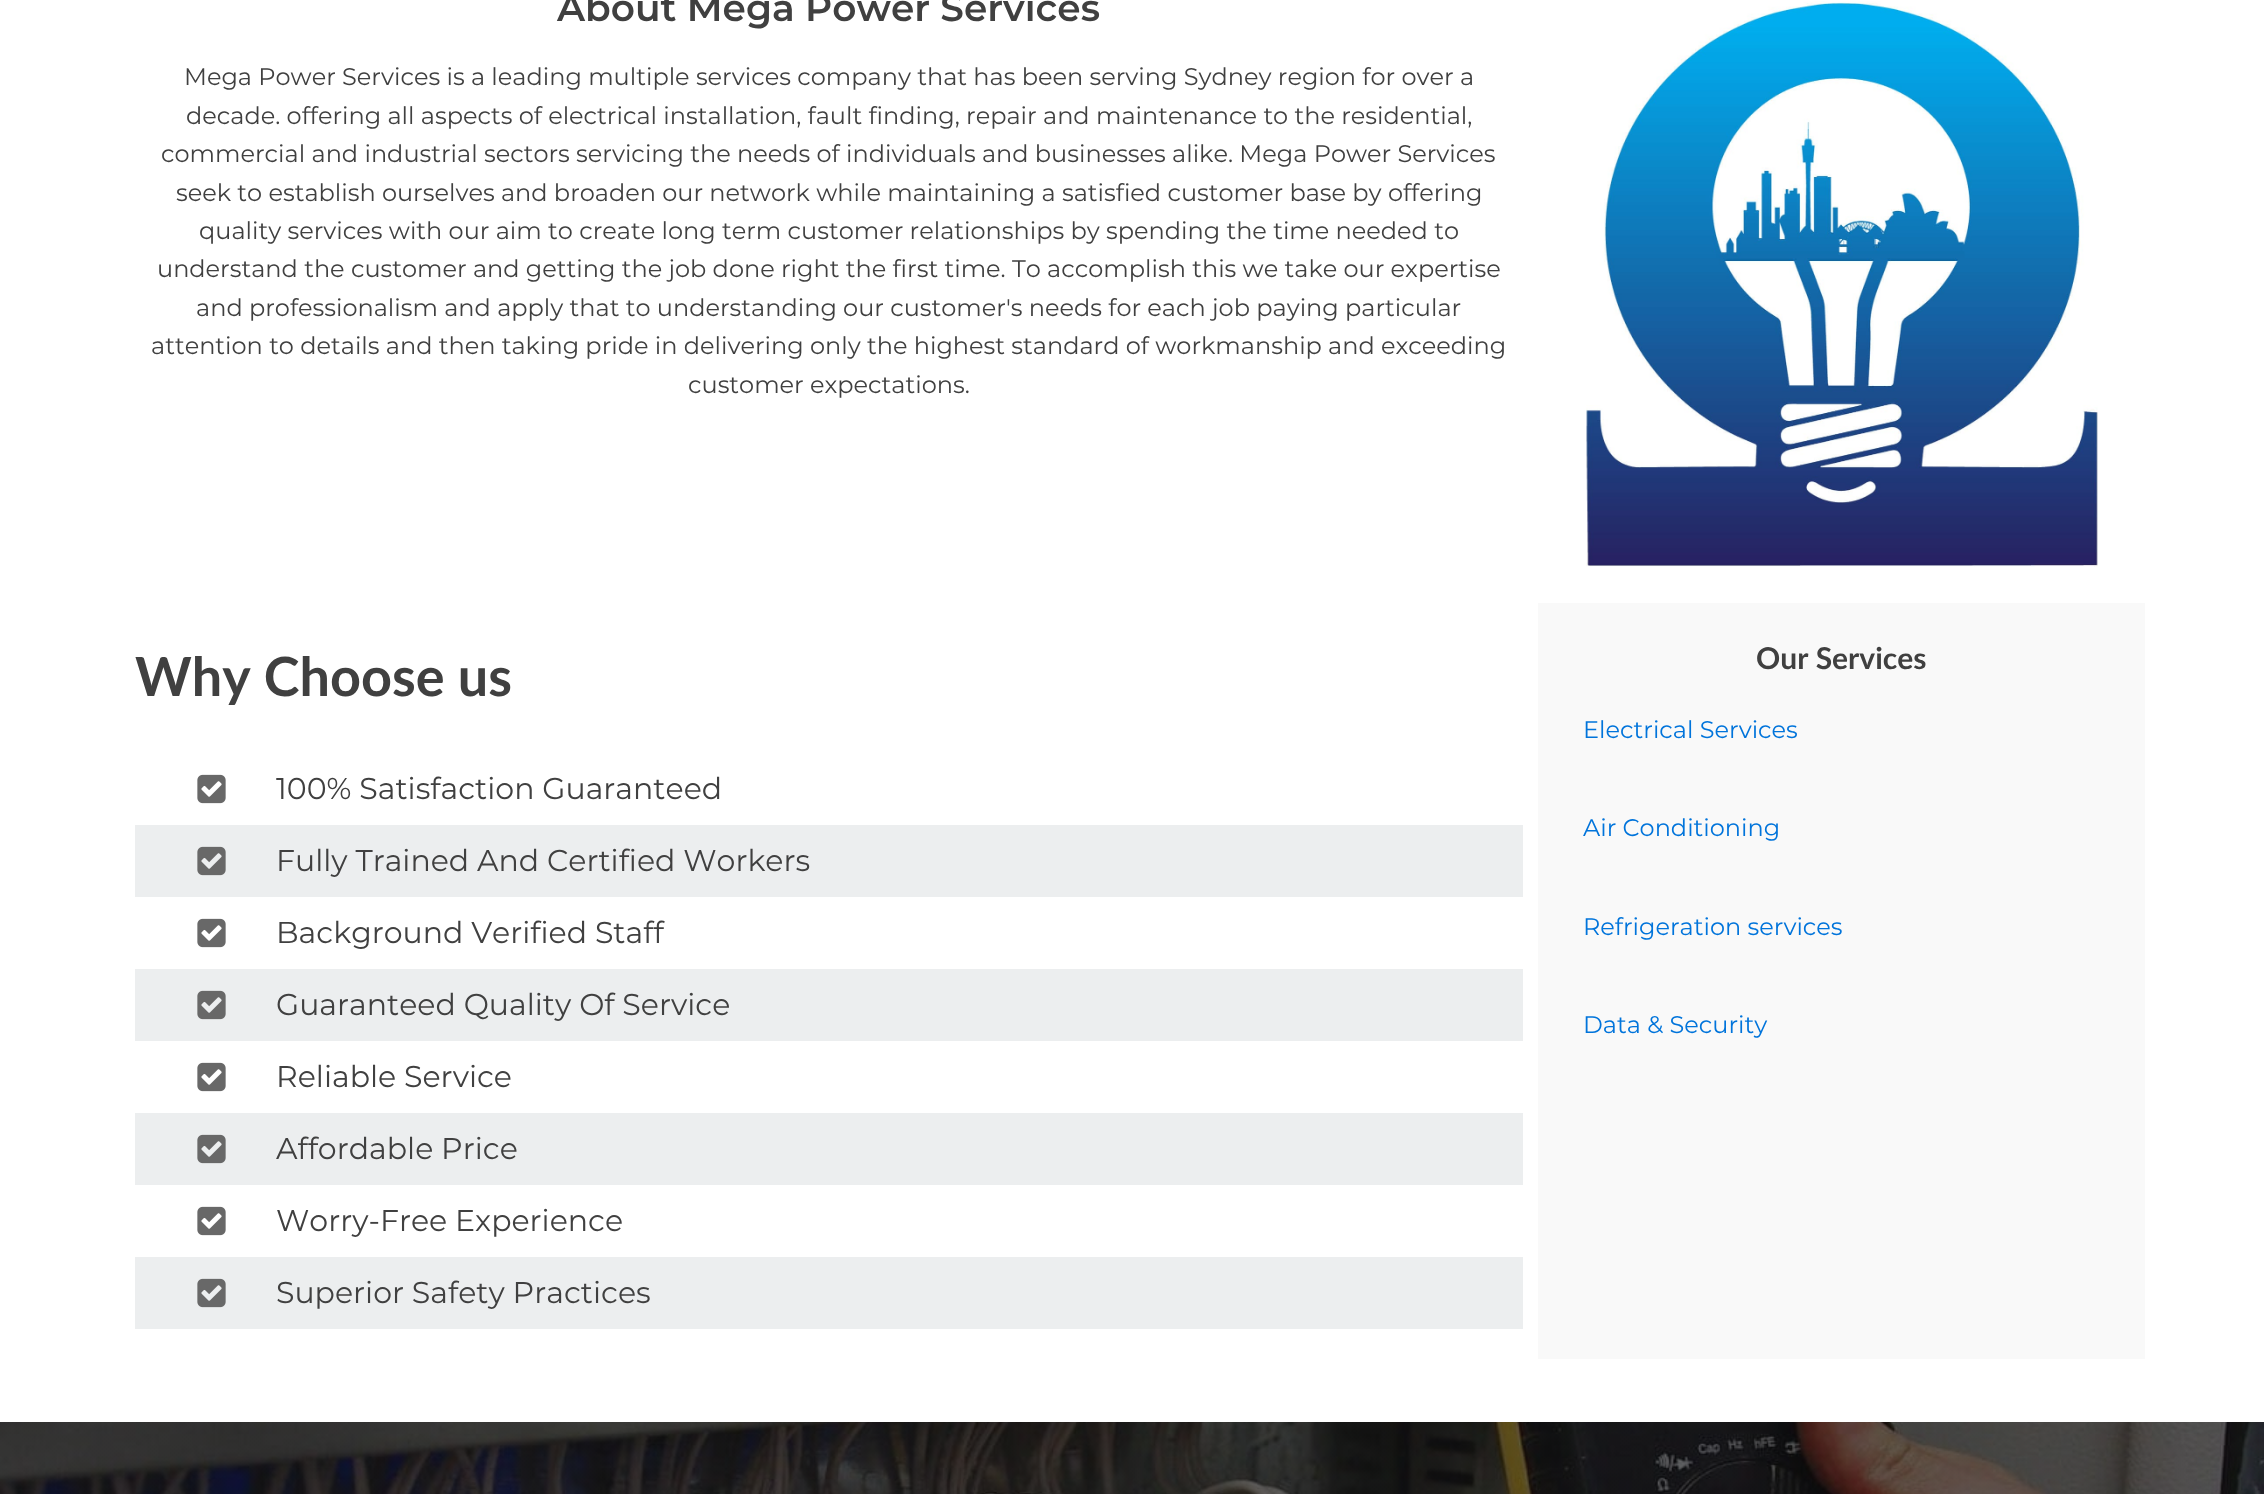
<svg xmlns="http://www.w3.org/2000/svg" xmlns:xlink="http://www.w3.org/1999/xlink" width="2264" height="1494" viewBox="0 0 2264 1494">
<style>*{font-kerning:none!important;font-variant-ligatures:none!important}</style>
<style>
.cls-1{font:600 37.5px Montserrat;fill:#404040}
.cls-2{font:24px Montserrat;fill:#404040}
.cls-3{font:bold 54px Lato;fill:#404040}
.cls-4{font:30px Montserrat;fill:#404040}
.cls-5{font:bold 30px Lato;fill:#404040}
.cls-6{font:24px Montserrat;fill:#0074db}
</style>
<rect width="100%" height="100%" fill="#ffffff"/>
<image xlink:href="image0.png" x="1586" y="1" width="512" height="566"/>
<image xlink:href="image1.png" x="197" y="774" width="29" height="30"/>
<rect fill="#eceeef" x="135" y="825" width="1388" height="72"/>
<image xlink:href="image2.png" x="197" y="846" width="29" height="30"/>
<image xlink:href="image1.png" x="197" y="918" width="29" height="30"/>
<rect fill="#eceeef" x="135" y="969" width="1388" height="72"/>
<image xlink:href="image2.png" x="197" y="990" width="29" height="30"/>
<image xlink:href="image1.png" x="197" y="1062" width="29" height="30"/>
<rect fill="#eceeef" x="135" y="1113" width="1388" height="72"/>
<image xlink:href="image2.png" x="197" y="1134" width="29" height="30"/>
<image xlink:href="image1.png" x="197" y="1206" width="29" height="30"/>
<rect fill="#eceeef" x="135" y="1257" width="1388" height="72"/>
<image xlink:href="image2.png" x="197" y="1278" width="29" height="30"/>
<rect fill="#f9f9f9" x="1538" y="603" width="607" height="756"/>
<image xlink:href="image3.png" x="0" y="1422" width="2264" height="72"/>
<text class="cls-1" x="557" y="21">About Mega Power Services</text>
<text class="cls-2" x="184" y="85">Mega Power Services is a leading multiple services company that has been serving Sydney region for over a</text>
<text class="cls-2" x="186" y="124">decade. offering all aspects of electrical installation, fault finding, repair and maintenance to the residential,</text>
<text class="cls-2" x="161" y="162">commercial and industrial sectors servicing the needs of individuals and businesses alike. Mega Power Services</text>
<text class="cls-2" x="176" y="201">seek to establish ourselves and broaden our network while maintaining a satisﬁed customer base by offering</text>
<text class="cls-2" x="199" y="239">quality services with our aim to create long term customer relationships by spending the time needed to</text>
<text class="cls-2" x="157" y="277">understand the customer and getting the job done right the first time. To accomplish this we take our expertise</text>
<text class="cls-2" x="196" y="316">and professionalism and apply that to understanding our customer's needs for each job paying particular</text>
<text class="cls-2" x="151" y="354">attention to details and then taking pride in delivering only the highest standard of workmanship</text>
<text class="cls-2" x="1328" y="354">and exceeding</text>
<text class="cls-2" x="688" y="393">customer expectations.</text>
<text class="cls-3" x="135" y="696">Why Choose us</text>
<text class="cls-4" x="276" y="799">100% Satisfaction Guaranteed</text>
<text class="cls-4" x="276" y="871">Fully Trained And Certified Workers</text>
<text class="cls-4" x="276" y="943">Background Verified Staff</text>
<text class="cls-4" x="276" y="1015">Guaranteed Quality Of Service</text>
<text class="cls-4" x="276" y="1087">Reliable Service</text>
<text class="cls-4" x="276" y="1159">Affordable Price</text>
<text class="cls-4" x="276" y="1231">Worry-Free Experience</text>
<text class="cls-4" x="276" y="1303">Superior Safety Practices</text>
<text class="cls-5" x="1756" y="669">Our Services</text>
<text class="cls-6" x="1583" y="738">Electrical Services</text>
<text class="cls-6" x="1583" y="836">Air Conditioning</text>
<text class="cls-6" x="1583" y="935">Refrigeration services</text>
<text class="cls-6" x="1583" y="1033">Data &amp; Security</text>
</svg>
